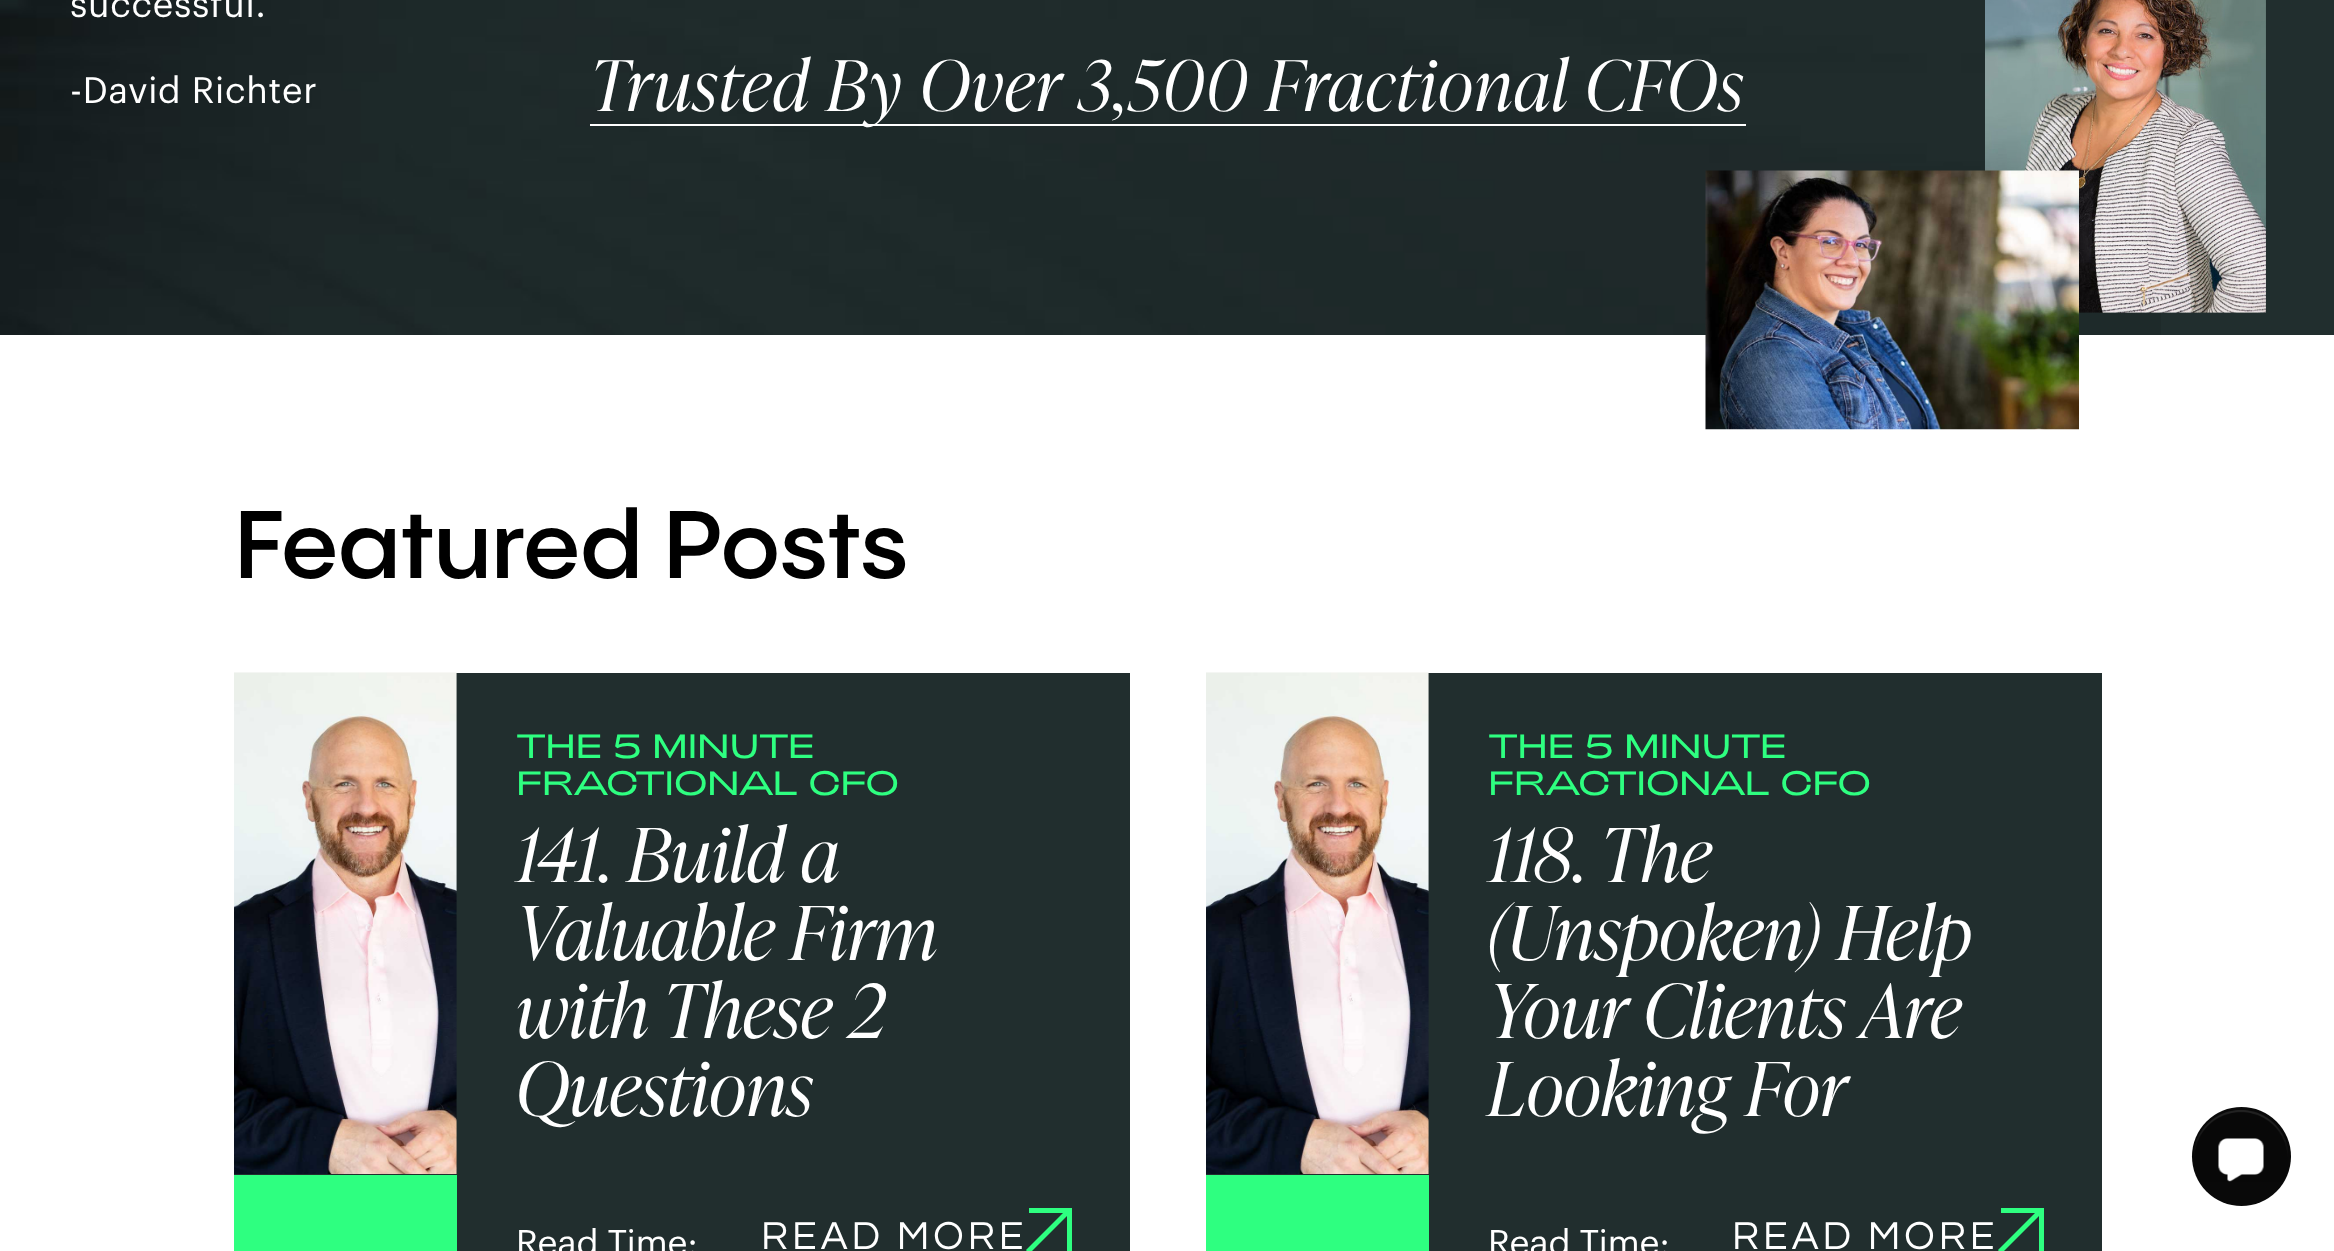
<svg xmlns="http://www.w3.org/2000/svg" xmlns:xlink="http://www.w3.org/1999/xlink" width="2334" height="1251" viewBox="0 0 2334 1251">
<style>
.cls-1{font:36px Graphik;letter-spacing:0.75px;fill:#ffffff}
.cls-2{font:italic 300 69.75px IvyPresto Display;letter-spacing:2.1px;fill:#ffffff}
.cls-3{font:600 94.5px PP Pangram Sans;fill:#000000}
.cls-4{font:300 33.75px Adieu;letter-spacing:0.3px;fill:#2eff80}
.cls-5{font:italic 300 74.25px IvyPresto Display;letter-spacing:0.75px;fill:#ffffff}
.cls-6{font:35px Graphik;fill:#ffffff}
.cls-7{font:40.5px Questrial;letter-spacing:4px;fill:#ffffff}
</style>
<rect width="100%" height="100%" fill="#ffffff"/>
<rect fill="#212e2e" x="2161" y="0" width="173" height="335"/>
<image xlink:href="image0.png" x="0" y="0" width="2161" height="335"/>
<image xlink:href="image2.png" x="1985" y="0" width="281" height="313"/>
<image xlink:href="image1.png" x="1705" y="170" width="374" height="260"/>
<rect fill="#ffffff" x="590" y="124" width="1156" height="2"/>
<rect fill="#212e2e" x="234" y="673" width="896" height="578"/>
<image xlink:href="image3.png" x="234" y="672" width="223" height="502"/>
<rect fill="#2eff80" x="234" y="1175" width="223" height="76"/>
<path fill="#2eff80" d="M1072 1210V1208H1029V1213H1063L1026 1250L1029 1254L1067 1216V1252H1072Z"/>
<rect fill="#212e2e" x="1206" y="673" width="896" height="578"/>
<image xlink:href="image4.png" x="1206" y="672" width="223" height="502"/>
<rect fill="#2eff80" x="1206" y="1175" width="223" height="76"/>
<path fill="#2eff80" d="M2044 1210V1208H2001V1213H2035L1998 1250L2001 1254L2039 1216V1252H2044Z"/>
<circle fill="#090909" cx="2241.5" cy="1156.5" r="49.5"/>
<image xlink:href="image5.png" x="2194" y="1110" width="94" height="72"/>
<text class="cls-1" x="70" y="17">successful.</text>
<text class="cls-1" x="70" y="103">-David Richter</text>
<text class="cls-2" x="590" y="111">Trusted By Over 3,500 Fractional CFOs</text>
<text class="cls-3" x="234" y="578">Featured Posts</text>
<text class="cls-4"><tspan x="516" y="758">THE 5 MINUTE</tspan><tspan x="516" y="795">FRACTIONAL CFO</tspan></text>
<text class="cls-5"><tspan x="516" y="882">141. Build a</tspan><tspan x="516" y="960" word-spacing="-1">Valuable Firm</tspan><tspan x="516" y="1038">with These 2</tspan><tspan x="516" y="1116">Questions</tspan></text>
<text class="cls-6" x="516" y="1255">Read Time:</text>
<text class="cls-7" x="761" y="1249">READ MORE</text>
<text class="cls-4"><tspan x="1488" y="758">THE 5 MINUTE</tspan><tspan x="1488" y="795">FRACTIONAL CFO</tspan></text>
<text class="cls-5"><tspan x="1488" y="882">118. The</tspan><tspan x="1488" y="960">(Unspoken) Help</tspan><tspan x="1488" y="1038">Your Clients Are</tspan><tspan x="1488" y="1116">Looking For</tspan></text>
<text class="cls-6" x="1488" y="1255">Read Time:</text>
<text class="cls-7" x="1732" y="1249">READ MORE</text>
</svg>
